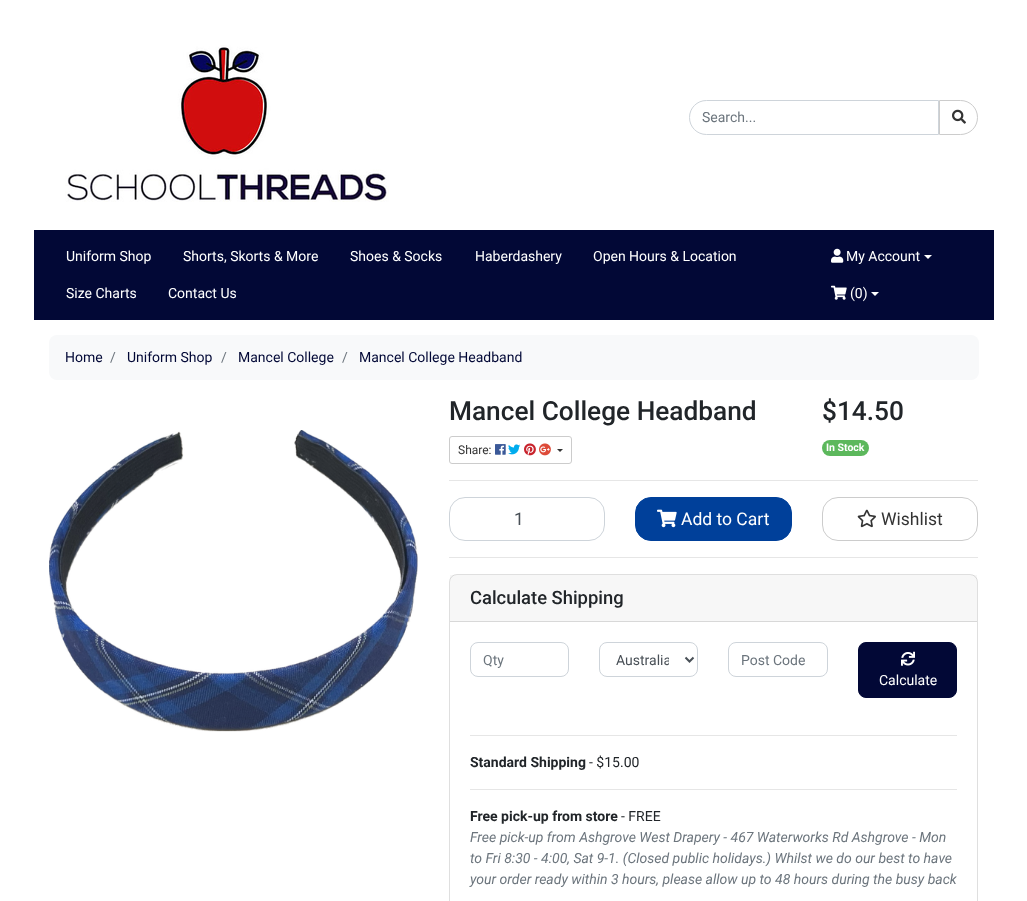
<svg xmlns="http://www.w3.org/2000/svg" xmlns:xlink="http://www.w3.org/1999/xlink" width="1027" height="901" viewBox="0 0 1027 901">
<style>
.cls-1{font:14px Roboto;fill:#6c757d}
.cls-2{font:14px Roboto;fill:#ffffff}
.cls-3{font:14px Roboto;fill:#020836}
.cls-4{font:500 26.25px Roboto;fill:#212529}
.cls-5{font:12px Roboto;fill:#333333}
.cls-6{font:bold 10.5px Roboto;fill:#ffffff}
.cls-7{font:17.5px Roboto;fill:#495057}
.cls-8{font:17.5px Roboto;fill:#ffffff}
.cls-9{font:17.5px Roboto;fill:#333333}
.cls-10{font:500 18.4px Roboto;fill:#212529}
.cls-11{font:14px Roboto;fill:#495057}
.cls-12{font:bold 14px Roboto;fill:#212529}
.cls-13{font:14px Roboto;fill:#212529}
.cls-14{font:italic 14px Roboto;fill:#6c757d}
</style>
<defs>
<clipPath id="clip1"><rect x="616" y="651" width="53" height="18"/></clipPath>
</defs>
<rect width="100%" height="100%" fill="#ffffff"/>
<image xlink:href="image0.png" x="65" y="45" width="324" height="157"/>
<path fill="none" stroke="#ced4da" d="M706.5 100.5H938.5V134.5H706.5C697 134.5 689.5 127 689.5 117.5C689.5 108 697 100.5 706.5 100.5Z"/>
<path fill="none" stroke="#cccccc" d="M939.5 100.5H960.5C970 100.5 977.5 108 977.5 117.5C977.5 127 970 134.5 960.5 134.5H939.5Z"/>
<image xlink:href="image1.png" x="952" y="109" width="14" height="15"/>
<rect fill="#020836" x="34" y="230" width="960" height="90"/>
<image xlink:href="image2.png" x="831" y="248" width="13" height="15"/>
<path fill="#ffffff" d="M924 255H932L928 259Z"/>
<image xlink:href="image3.png" x="831" y="285" width="16" height="15"/>
<path fill="#ffffff" d="M871 292H879L875 296Z"/>
<rect fill="#f8f9fa" x="49" y="335" width="930" height="45" rx="8"/>
<image xlink:href="image4.png" x="49" y="430" width="369" height="302"/>
<rect fill="none" stroke="#cccccc" x="449.5" y="436.5" width="122" height="27" rx="2.5"/>
<image xlink:href="image5.png" x="495" y="444" width="11" height="11"/>
<image xlink:href="image6.png" x="508" y="444" width="13" height="11"/>
<image xlink:href="image7.png" x="524" y="443" width="12" height="13"/>
<image xlink:href="image8.png" x="539" y="443" width="12" height="13"/>
<path fill="#333333" d="M557 449H563L560 452Z"/>
<rect fill="#5cb85c" x="822" y="440" width="47" height="16" rx="8"/>
<rect fill="#e6e6e6" x="449" y="480" width="529" height="1"/>
<rect fill="none" stroke="#ced4da" x="449.5" y="497.5" width="155" height="43" rx="15.5"/>
<rect fill="#00409a" stroke="#00409a" x="635.5" y="497.5" width="156" height="43" rx="15.5"/>
<image xlink:href="image9.png" x="657" y="509" width="20" height="19"/>
<rect fill="none" stroke="#cccccc" x="822.5" y="497.5" width="155" height="43" rx="15.5"/>
<image xlink:href="image10.png" x="857" y="509" width="19" height="19"/>
<rect fill="#e6e6e6" x="449" y="557" width="529" height="1"/>
<rect fill="none" stroke="#dfdfdf" x="449.5" y="574.5" width="528" height="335" rx="7.5"/>
<rect fill="#000000" fill-opacity="0.03" x="450" y="575" width="527" height="46"/>
<rect fill="#d8d8d8" x="450" y="621" width="527" height="1"/>
<rect fill="none" stroke="#ced4da" x="470.5" y="642.5" width="98" height="34" rx="7.5"/>
<rect fill="none" stroke="#ced4da" x="599.5" y="642.5" width="98" height="34" rx="7.5"/>
<path fill="none" stroke="#495057" stroke-width="2" d="M685.5 657.5L689.5 661.5L693.5 657.5"/>
<rect fill="none" stroke="#ced4da" x="728.5" y="642.5" width="99" height="34" rx="7.5"/>
<rect fill="#020836" stroke="#020836" x="858.5" y="642.5" width="98" height="55" rx="7.5"/>
<image xlink:href="image11.png" x="901" y="651" width="14" height="15"/>
<rect fill="#e6e6e6" x="470" y="735" width="487" height="1"/>
<rect fill="#e6e6e6" x="470" y="789" width="487" height="1"/>
<text class="cls-1" x="702" y="122">Search...</text>
<text class="cls-2" x="66" y="261">Uniform Shop</text>
<text class="cls-2" x="183" y="261">Shorts, Skorts &amp; More</text>
<text class="cls-2" x="350" y="261">Shoes &amp; Socks</text>
<text class="cls-2" x="475" y="261">Haberdashery</text>
<text class="cls-2" x="593" y="261">Open Hours &amp; Location</text>
<text class="cls-2" x="66" y="298">Size Charts</text>
<text class="cls-2" x="168" y="298">Contact Us</text>
<text class="cls-2" x="846" y="261">My Account</text>
<text class="cls-2" x="850" y="298">(0)</text>
<text class="cls-3" x="65" y="362">Home</text>
<text class="cls-1" x="110" y="362">/</text>
<text class="cls-3" x="127" y="362">Uniform Shop</text>
<text class="cls-1" x="221" y="362">/</text>
<text class="cls-3" x="238" y="362">Mancel College</text>
<text class="cls-1" x="342" y="362">/</text>
<text class="cls-3" x="359" y="362">Mancel College Headband</text>
<text class="cls-4" x="449" y="420">Mancel College Headband</text>
<text class="cls-5" x="458" y="454">Share:</text>
<text class="cls-4" x="822" y="420">$14.50</text>
<text class="cls-6" x="826" y="451">In Stock</text>
<text class="cls-7" x="514" y="525">1</text>
<text class="cls-8" x="681" y="525">Add to Cart</text>
<text class="cls-9" x="881" y="525">Wishlist</text>
<text class="cls-10" x="470" y="604">Calculate Shipping</text>
<text class="cls-1" x="483" y="665">Qty</text>
<g clip-path="url(#clip1)">
<text class="cls-11" x="616" y="665">Australia</text>
</g>
<text class="cls-1" x="741" y="665">Post Code</text>
<text class="cls-2" x="879" y="685">Calculate</text>
<text class="cls-12" x="470" y="767">Standard Shipping</text>
<text class="cls-13" x="589" y="767">- $15.00</text>
<text class="cls-12" x="470" y="821">Free pick-up from store</text>
<text class="cls-13" x="621" y="821">- FREE</text>
<text class="cls-14"><tspan x="470" y="842">Free pick-up from Ashgrove West Drapery - 467 Waterworks Rd Ashgrove - Mon</tspan><tspan x="470" y="863">to Fri 8:30 - 4:00, Sat 9-1. (Closed public holidays.) Whilst we do our best to have</tspan><tspan x="470" y="884">your order ready within 3 hours, please allow up to 48 hours during the busy back</tspan></text>
</svg>
